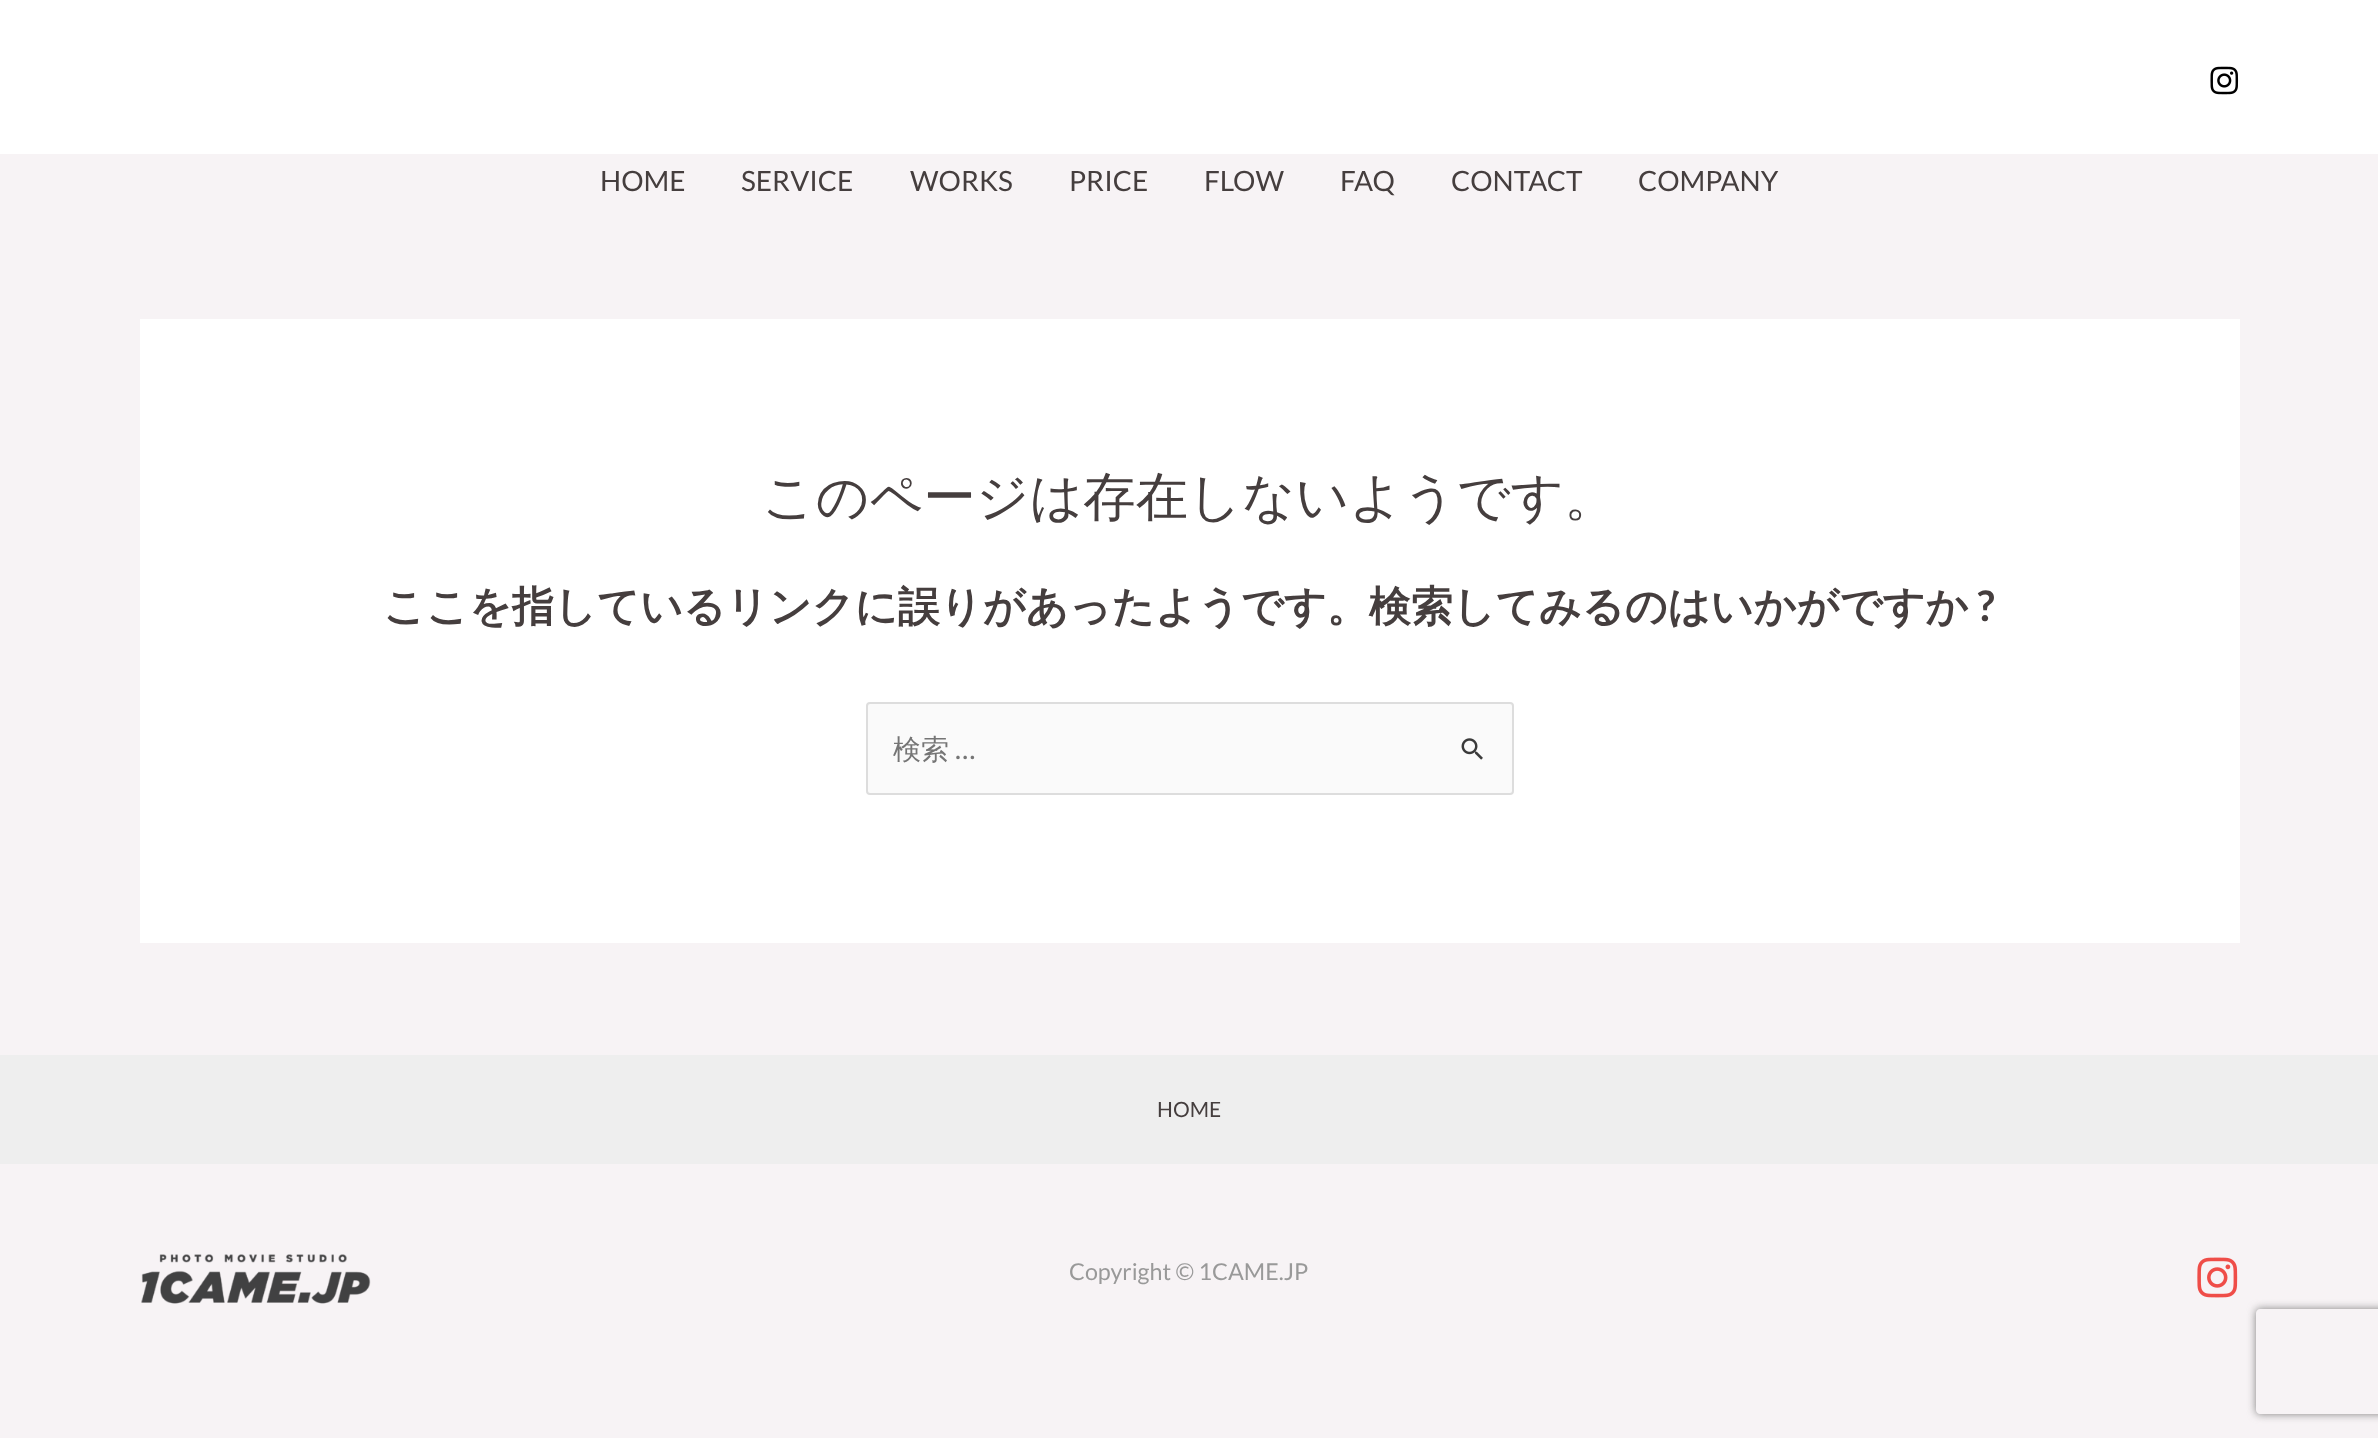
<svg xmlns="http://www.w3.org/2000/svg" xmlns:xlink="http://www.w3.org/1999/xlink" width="2378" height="1438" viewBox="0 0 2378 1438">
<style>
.cls-1{font:28px Lato;fill:#453e3e}
.cls-2{font:500 52.5px WenQuanYi Zen Hei;fill:#453e3e}
.cls-3{font:bold 42px WenQuanYi Zen Hei;fill:#453e3e}
.cls-4{font:bold 42px Lato;fill:#453e3e}
.cls-5{font:500 28px WenQuanYi Zen Hei;fill:#757575}
.cls-6{font:28px Lato;fill:#757575}
.cls-7{font:21px Lato;fill:#453e3e}
.cls-8{font:23.25px Lato;fill:#999999}
</style>
<defs>
<clipPath id="clip1"><path d="M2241 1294H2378V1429H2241ZM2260 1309H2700C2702 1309 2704 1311 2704 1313V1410C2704 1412 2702 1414 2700 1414H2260C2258 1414 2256 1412 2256 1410V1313C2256 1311 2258 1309 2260 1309Z" clip-rule="evenodd"/></clipPath>
</defs>
<rect width="100%" height="100%" fill="#f7f3f5"/>
<rect fill="#ffffff" x="0" y="0" width="2378" height="154"/>
<image xlink:href="image0.png" x="2210" y="66" width="29" height="29"/>
<rect fill="#ffffff" x="140" y="319" width="2100" height="624"/>
<rect fill="#fafafa" stroke="#dddddd" stroke-width="2" x="867" y="703" width="646" height="91" rx="3"/>
<image xlink:href="image1.png" x="1461" y="738" width="22" height="22"/>
<rect fill="#eeeeee" x="0" y="1055" width="2378" height="109"/>
<image xlink:href="image2.png" x="141" y="1254" width="230" height="50"/>
<image xlink:href="image3.png" x="2197" y="1257" width="41" height="41"/>
<g clip-path="url(#clip1)">
<rect fill="#808080" filter="blur(4.5px)" x="2256" y="1309" width="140" height="105" rx="4"/>
</g>
<text class="cls-1" x="600" y="191">HOME</text>
<text class="cls-1" x="741" y="191">SERVICE</text>
<text class="cls-1" x="910" y="191">WORKS</text>
<text class="cls-1" x="1069" y="191">PRICE</text>
<text class="cls-1" x="1204" y="191">FLOW</text>
<text class="cls-1" x="1340" y="191">FAQ</text>
<text class="cls-1" x="1451" y="191">CONTACT</text>
<text class="cls-1" x="1638" y="191">COMPANY</text>
<text class="cls-2" x="762" y="515">このページは存在しないようです。</text>
<text class="cls-3" x="383" y="621">ここを指しているリンクに誤りがあったようです。検索してみるのはいかがですか</text>
<text class="cls-4" x="1977" y="621">?</text>
<text class="cls-5" x="893" y="759">検索</text>
<text class="cls-6" x="955" y="759">…</text>
<text class="cls-7" x="1157" y="1117">HOME</text>
<text class="cls-8" x="1069" y="1280">Copyright © 1CAME.JP</text>
</svg>
